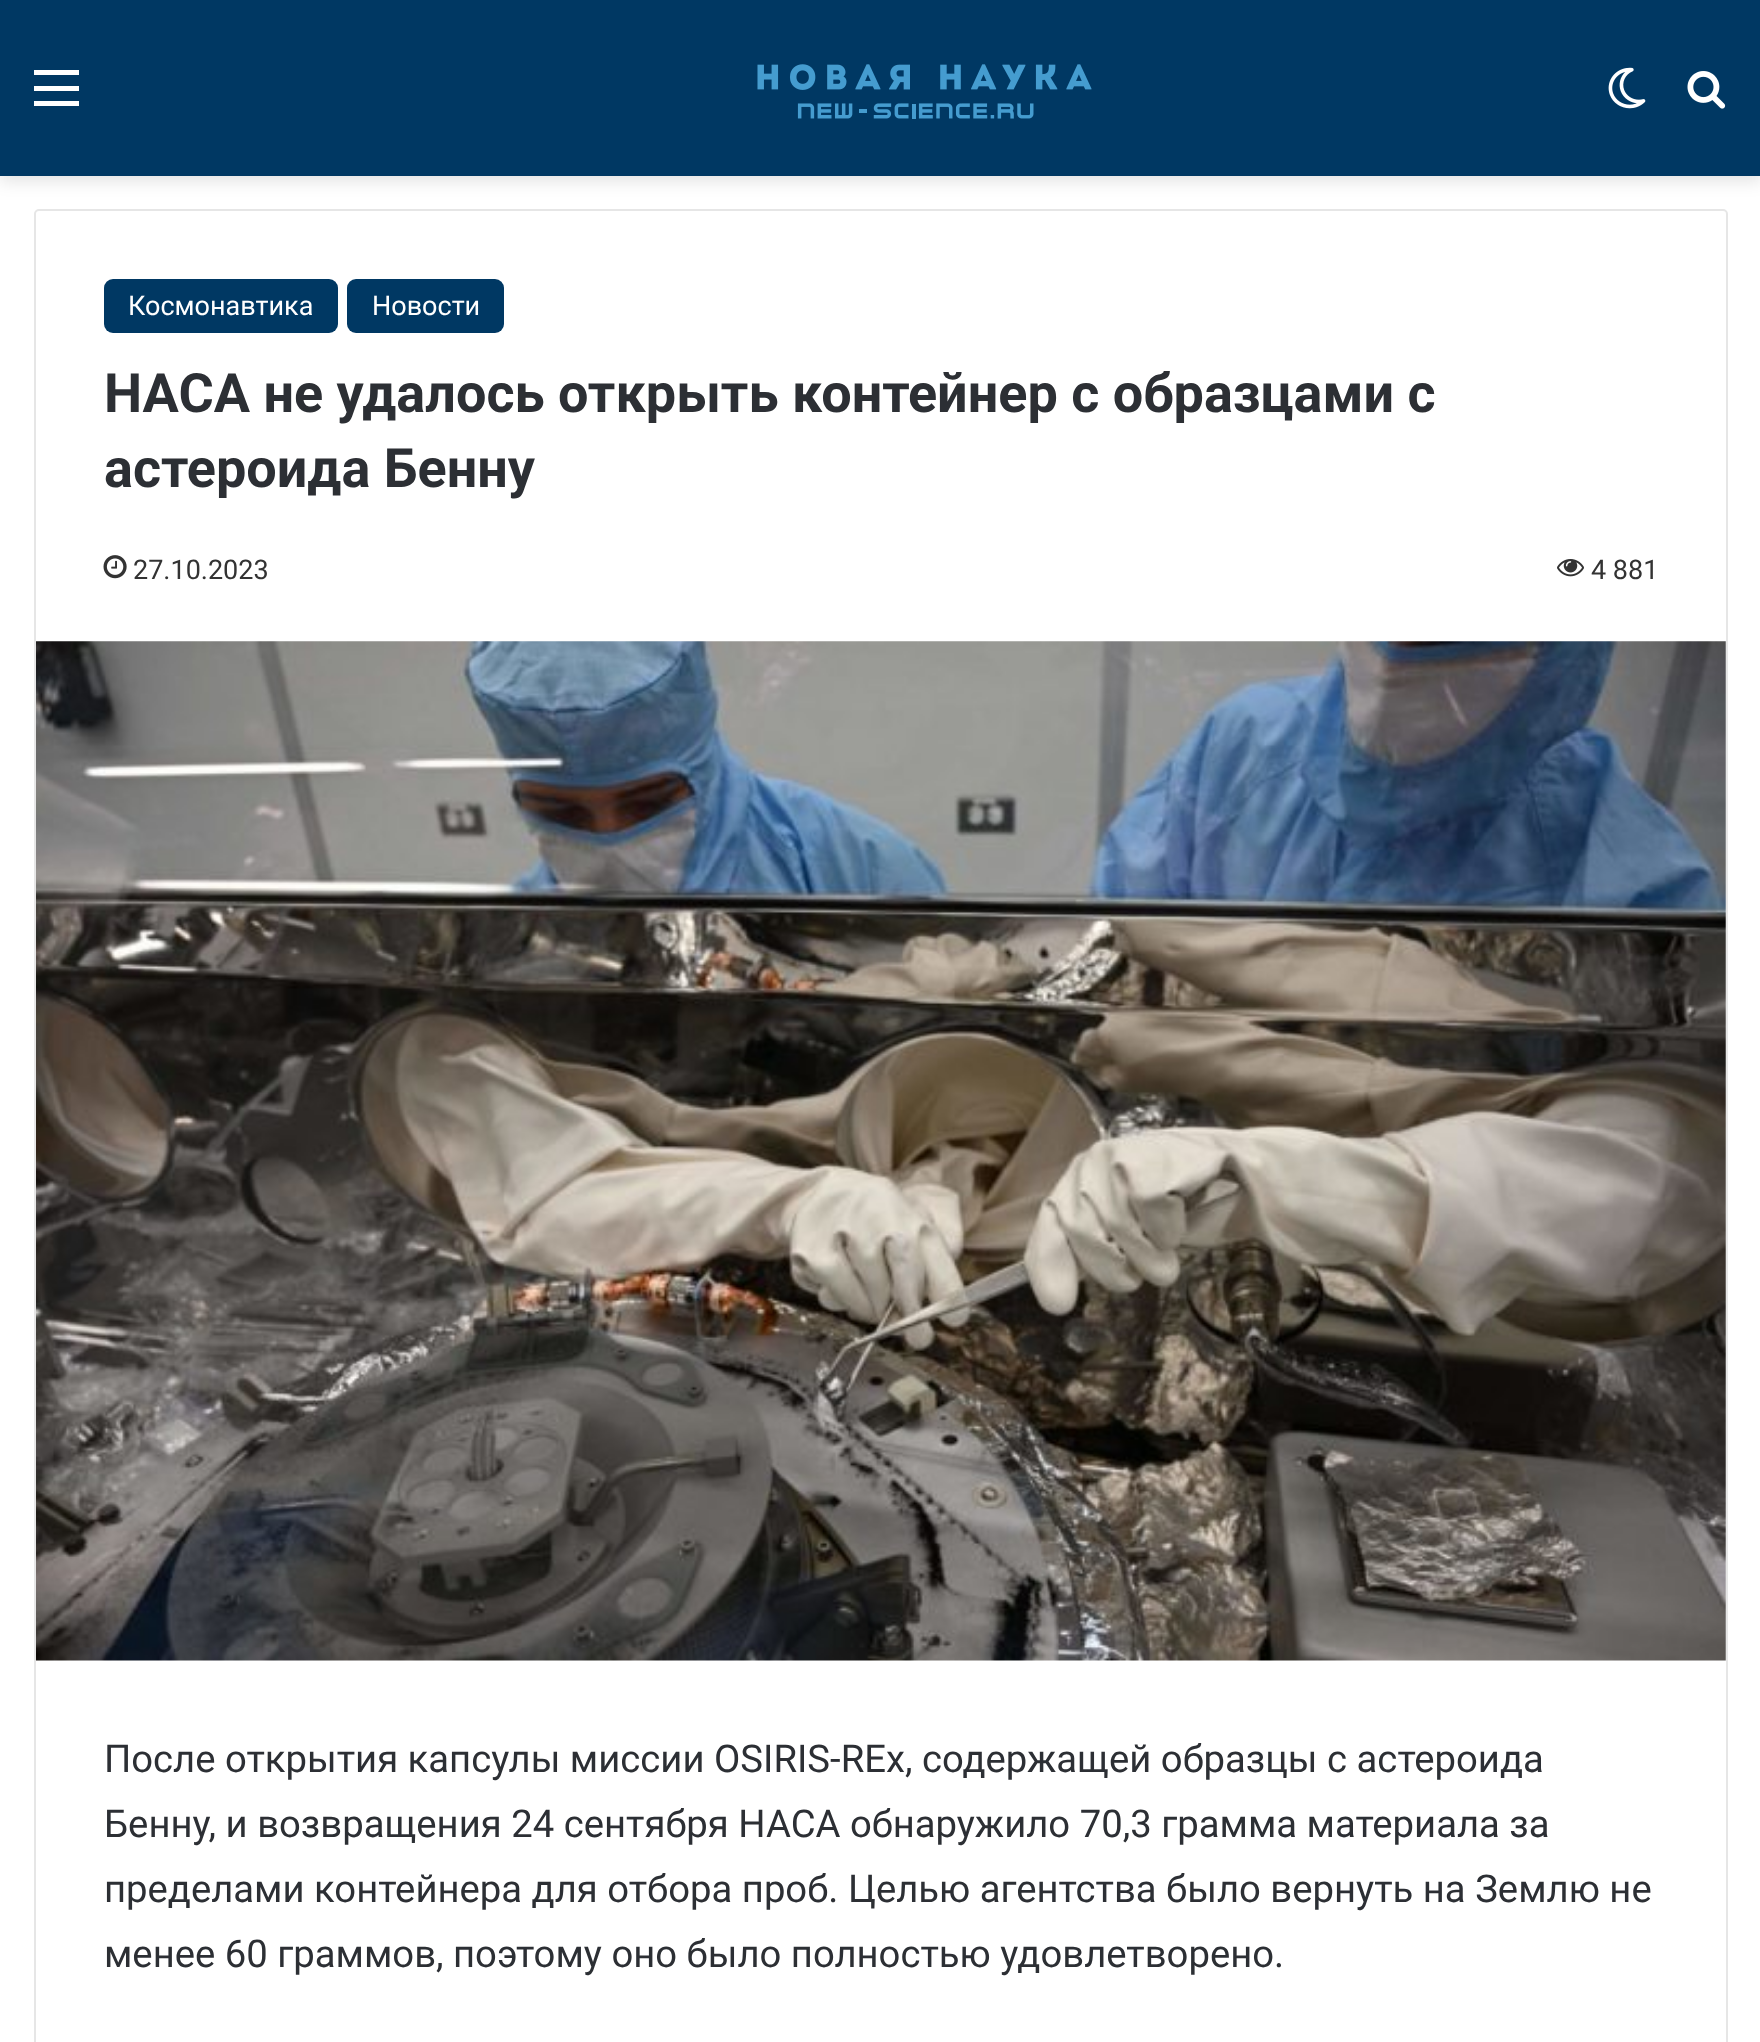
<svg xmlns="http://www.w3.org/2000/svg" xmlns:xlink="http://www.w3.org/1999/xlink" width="1760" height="2042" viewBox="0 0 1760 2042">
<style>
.cls-1{font:27px Roboto;fill:#ffffff}
.cls-2{font:bold 54px Roboto;fill:#2c2f34}
.cls-3{font:27px Roboto;fill:#333333}
.cls-4{font:38.25px Roboto;fill:#2c2f34}
</style>
<rect width="100%" height="100%" fill="#ffffff"/>
<rect fill="#000000" fill-opacity="0.1" filter="blur(8px)" x="0" y="7" width="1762" height="175"/>
<rect fill="#003863" x="0" y="0" width="1760" height="176"/>
<rect fill="#ffffff" x="34" y="86" width="45" height="5"/>
<rect fill="#ffffff" x="34" y="70" width="45" height="5"/>
<rect fill="#ffffff" x="34" y="101" width="45" height="5"/>
<image xlink:href="image0.png" x="757" y="64" width="335" height="55"/>
<image xlink:href="image1.png" x="1608" y="67" width="38" height="42"/>
<image xlink:href="image2.png" x="1687" y="71" width="39" height="38"/>
<rect fill="none" stroke="#e6e6e6" stroke-width="2" x="35" y="210" width="1692" height="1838" rx="4"/>
<rect fill="#003863" x="104" y="279" width="234" height="54" rx="9"/>
<rect fill="#003863" x="347" y="279" width="157" height="54" rx="9"/>
<image xlink:href="image3.png" x="103" y="555" width="24" height="24"/>
<image xlink:href="image4.png" x="1557" y="559" width="27" height="18"/>
<image xlink:href="image5.png" x="36" y="641" width="1690" height="1020"/>
<text class="cls-1" x="128" y="315">Космонавтика</text>
<text class="cls-1" x="372" y="315">Новости</text>
<text class="cls-2"><tspan x="104" y="412">НАСА не удалось открыть контейнер с образцами с</tspan><tspan x="104" y="487">астероида Бенну</tspan></text>
<text class="cls-3" x="133" y="579">27.10.2023</text>
<text class="cls-3" x="1591" y="579">4 881</text>
<text class="cls-4"><tspan x="104" y="1772">После открытия капсулы миссии OSIRIS-REx, содержащей образцы с астероида</tspan><tspan x="104" y="1837">Бенну, и возвращения 24 сентября НАСА обнаружило 70,3 грамма материала за</tspan><tspan x="104" y="1902">пределами контейнера для отбора проб. Целью агентства было вернуть на Землю не</tspan><tspan x="104" y="1967">менее 60 граммов, поэтому оно было полностью удовлетворено.</tspan></text>
</svg>
